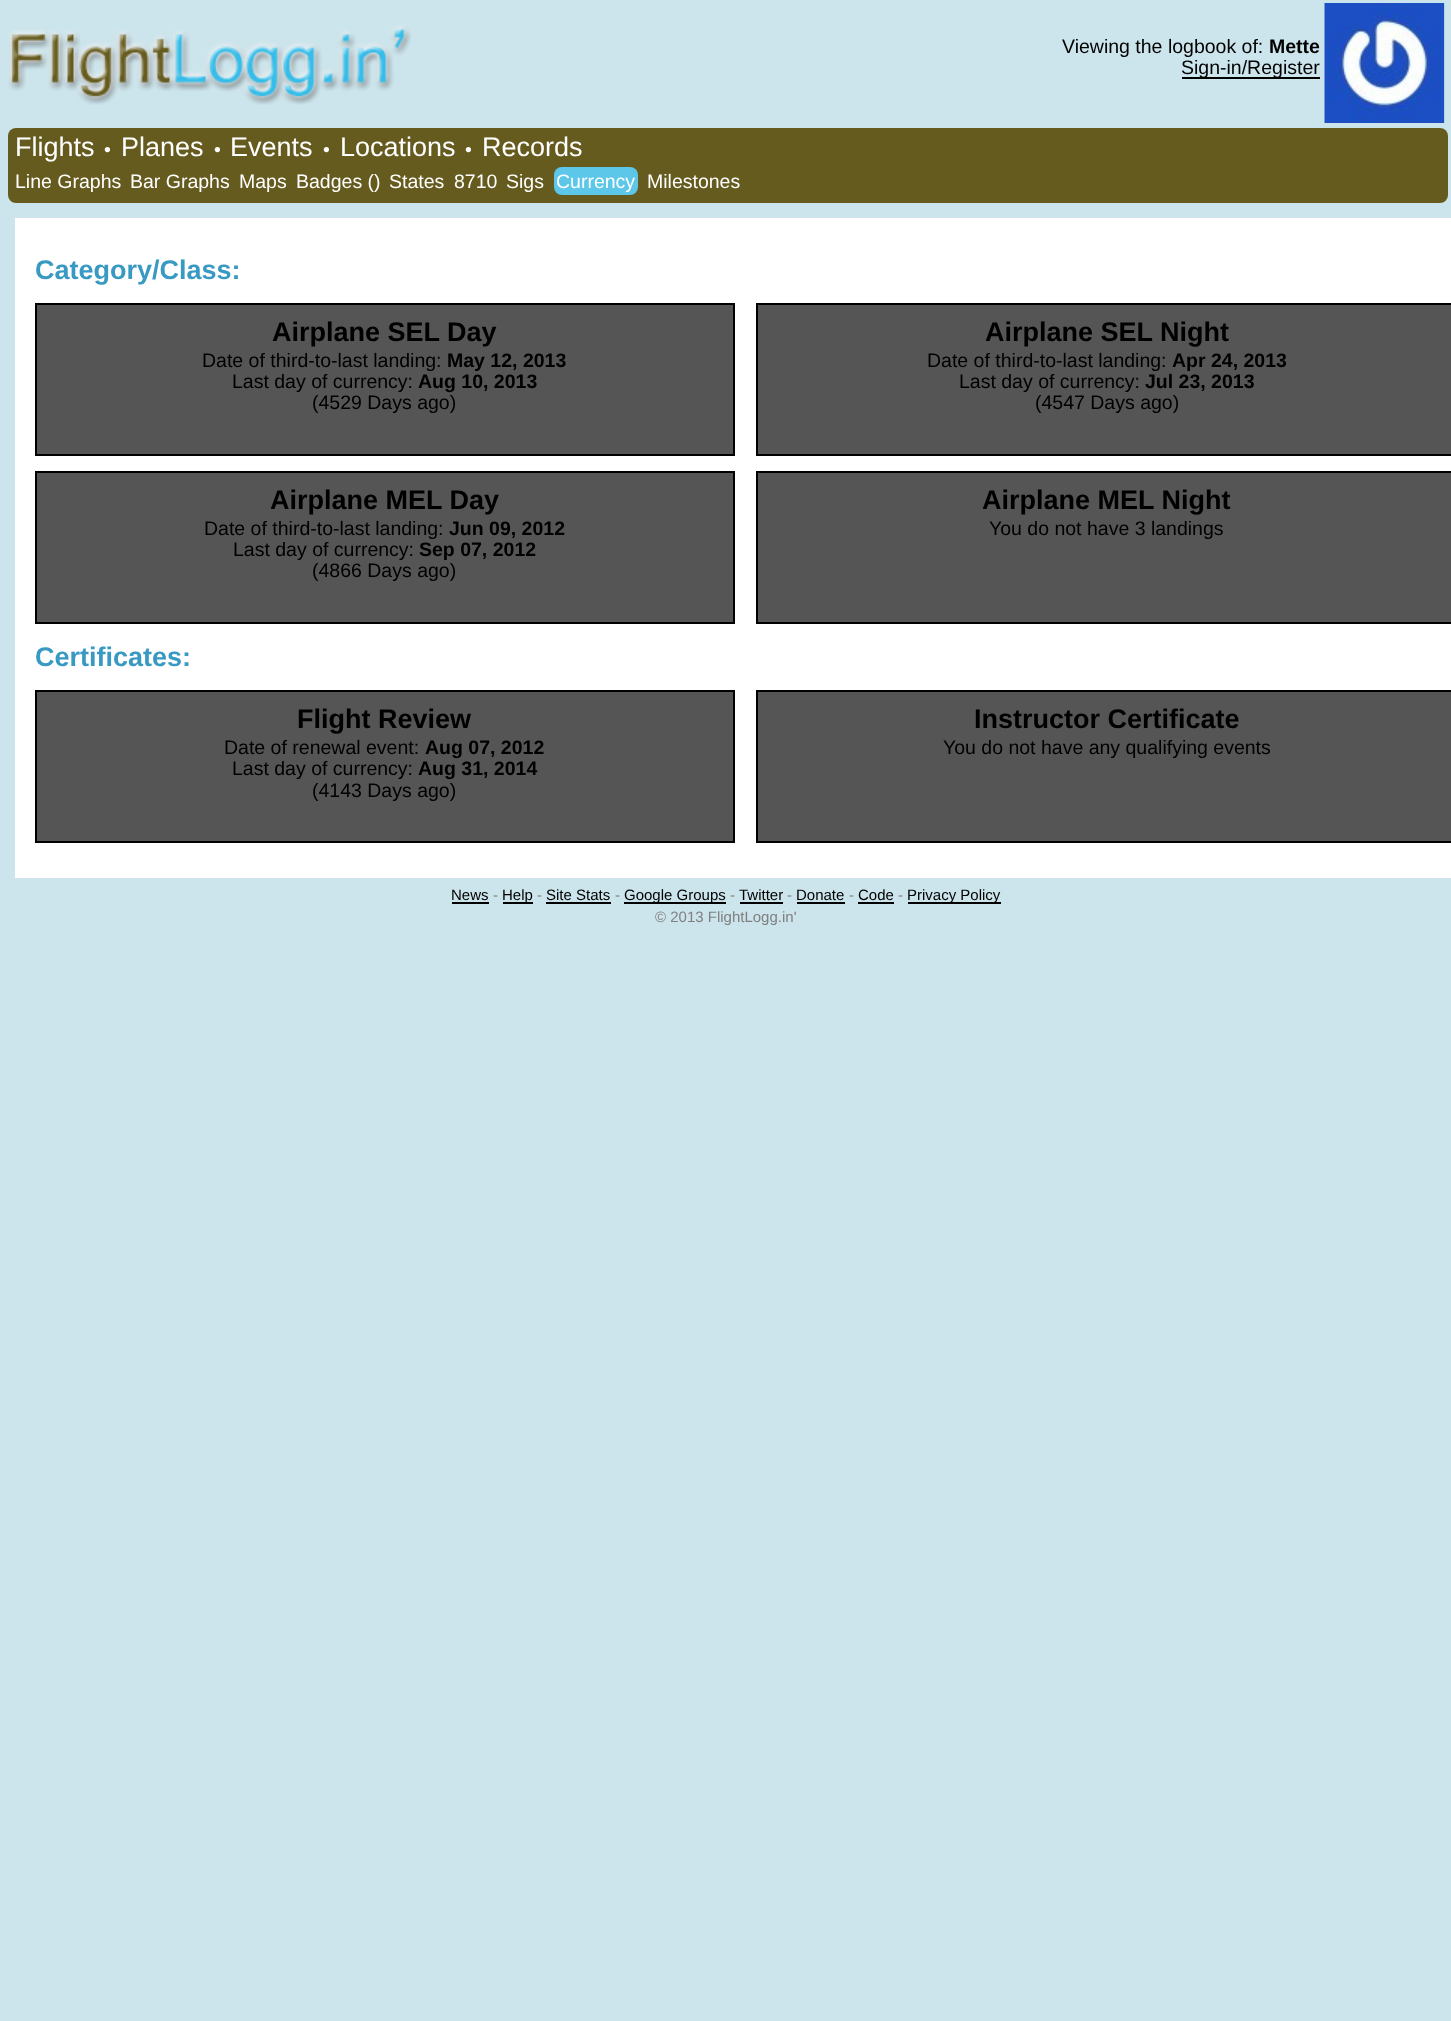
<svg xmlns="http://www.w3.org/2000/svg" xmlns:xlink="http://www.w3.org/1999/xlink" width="1451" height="2021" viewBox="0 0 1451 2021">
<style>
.cls-1{font:19.5px Liberation Sans;fill:#000000}
.cls-2{font:bold 19.5px Liberation Sans;fill:#000000}
.cls-3{font:27px Liberation Sans;fill:#ffffff}
.cls-4{font:19.5px Liberation Sans;fill:#ffffff}
.cls-5{font:bold 27px Liberation Sans;fill:#3899c2}
.cls-6{font:bold 27px Liberation Sans;fill:#000000}
.cls-7{font:15px Liberation Sans;fill:#000000}
.cls-8{font:15px Liberation Sans;fill:#808080}
</style>
<rect width="100%" height="100%" fill="#cce4eb"/>
<image xlink:href="image0.png" x="8" y="25" width="403" height="80"/>
<rect fill="#000000" x="1182" y="77" width="138" height="2"/>
<image xlink:href="image1.png" x="1324" y="3" width="121" height="120"/>
<rect fill="#665b1e" x="8" y="128" width="1440" height="75" rx="8"/>
<rect fill="#5dc7e9" x="554" y="167" width="84" height="28" rx="8"/>
<rect fill="#ffffff" x="15" y="218" width="1436" height="660"/>
<rect fill="#555555" stroke="#000000" stroke-width="2" x="36" y="304" width="698" height="151"/>
<rect fill="#555555" stroke="#000000" stroke-width="2" x="757" y="304" width="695" height="151"/>
<rect fill="#555555" stroke="#000000" stroke-width="2" x="36" y="472" width="698" height="151"/>
<rect fill="#555555" stroke="#000000" stroke-width="2" x="757" y="472" width="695" height="151"/>
<rect fill="#555555" stroke="#000000" stroke-width="2" x="36" y="691" width="698" height="151"/>
<rect fill="#555555" stroke="#000000" stroke-width="2" x="757" y="691" width="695" height="151"/>
<rect fill="#000000" x="452" y="902" width="37" height="2"/>
<rect fill="#000000" x="503" y="902" width="30" height="2"/>
<rect fill="#000000" x="546" y="902" width="65" height="2"/>
<rect fill="#000000" x="624" y="902" width="102" height="2"/>
<rect fill="#000000" x="740" y="902" width="43" height="2"/>
<rect fill="#000000" x="797" y="902" width="48" height="2"/>
<rect fill="#000000" x="858" y="902" width="36" height="2"/>
<rect fill="#000000" x="908" y="902" width="93" height="2"/>
<text class="cls-1" x="1062" y="53">Viewing the logbook of:</text>
<text class="cls-2" x="1269" y="53">Mette</text>
<text class="cls-1" x="1181" y="74">Sign-in/Register</text>
<text class="cls-3" x="15" y="156">Flights</text>
<text class="cls-4" x="104" y="156">•</text>
<text class="cls-3" x="121" y="156">Planes</text>
<text class="cls-4" x="214" y="156">•</text>
<text class="cls-3" x="230" y="156">Events</text>
<text class="cls-4" x="323" y="156">•</text>
<text class="cls-3" x="340" y="156">Locations</text>
<text class="cls-4" x="465" y="156">•</text>
<text class="cls-3" x="482" y="156">Records</text>
<text class="cls-4" x="15" y="188">Line Graphs</text>
<text class="cls-4" x="130" y="188">Bar Graphs</text>
<text class="cls-4" x="239" y="188">Maps</text>
<text class="cls-4" x="296" y="188">Badges ()</text>
<text class="cls-4" x="389" y="188">States</text>
<text class="cls-4" x="454" y="188">8710</text>
<text class="cls-4" x="506" y="188">Sigs</text>
<text class="cls-4" x="556" y="188">Currency</text>
<text class="cls-4" x="647" y="188">Milestones</text>
<text class="cls-5" x="35" y="279">Category/Class:</text>
<text class="cls-6" x="272" y="341">Airplane SEL Day</text>
<text class="cls-1" x="202" y="367">Date of third-to-last landing:</text>
<text class="cls-2" x="447" y="367">May 12, 2013</text>
<text class="cls-1" x="232" y="388">Last day of currency:</text>
<text class="cls-2" x="418" y="388">Aug 10, 2013</text>
<text class="cls-1" x="312" y="409">(4529 Days ago)</text>
<text class="cls-6" x="985" y="341">Airplane SEL Night</text>
<text class="cls-1" x="927" y="367">Date of third-to-last landing:</text>
<text class="cls-2" x="1172" y="367">Apr 24, 2013</text>
<text class="cls-1" x="959" y="388">Last day of currency:</text>
<text class="cls-2" x="1145" y="388">Jul 23, 2013</text>
<text class="cls-1" x="1035" y="409">(4547 Days ago)</text>
<text class="cls-6" x="270" y="509">Airplane MEL Day</text>
<text class="cls-1" x="204" y="535">Date of third-to-last landing:</text>
<text class="cls-2" x="449" y="535">Jun 09, 2012</text>
<text class="cls-1" x="233" y="556">Last day of currency:</text>
<text class="cls-2" x="419" y="556">Sep 07, 2012</text>
<text class="cls-1" x="312" y="577">(4866 Days ago)</text>
<text class="cls-6" x="982" y="509">Airplane MEL Night</text>
<text class="cls-1" x="989" y="535">You do not have 3 landings</text>
<text class="cls-5" x="35" y="666">Certificates:</text>
<text class="cls-6" x="297" y="728">Flight Review</text>
<text class="cls-1" x="224" y="754">Date of renewal event:</text>
<text class="cls-2" x="425" y="754">Aug 07, 2012</text>
<text class="cls-1" x="232" y="775">Last day of currency:</text>
<text class="cls-2" x="418" y="775">Aug 31, 2014</text>
<text class="cls-1" x="312" y="797">(4143 Days ago)</text>
<text class="cls-6" x="974" y="728">Instructor Certificate</text>
<text class="cls-1" x="943" y="754">You do not have any qualifying events</text>
<text class="cls-7" x="451" y="900">News</text>
<text class="cls-8" x="493" y="900">-</text>
<text class="cls-7" x="502" y="900">Help</text>
<text class="cls-8" x="537" y="900">-</text>
<text class="cls-7" x="546" y="900">Site Stats</text>
<text class="cls-8" x="615" y="900">-</text>
<text class="cls-7" x="624" y="900">Google Groups</text>
<text class="cls-8" x="730" y="900">-</text>
<text class="cls-7" x="739" y="900">Twitter</text>
<text class="cls-8" x="787" y="900">-</text>
<text class="cls-7" x="796" y="900">Donate</text>
<text class="cls-8" x="849" y="900">-</text>
<text class="cls-7" x="858" y="900">Code</text>
<text class="cls-8" x="898" y="900">-</text>
<text class="cls-7" x="907" y="900">Privacy Policy</text>
<text class="cls-8" x="655" y="922">© 2013 FlightLogg.in'</text>
</svg>
